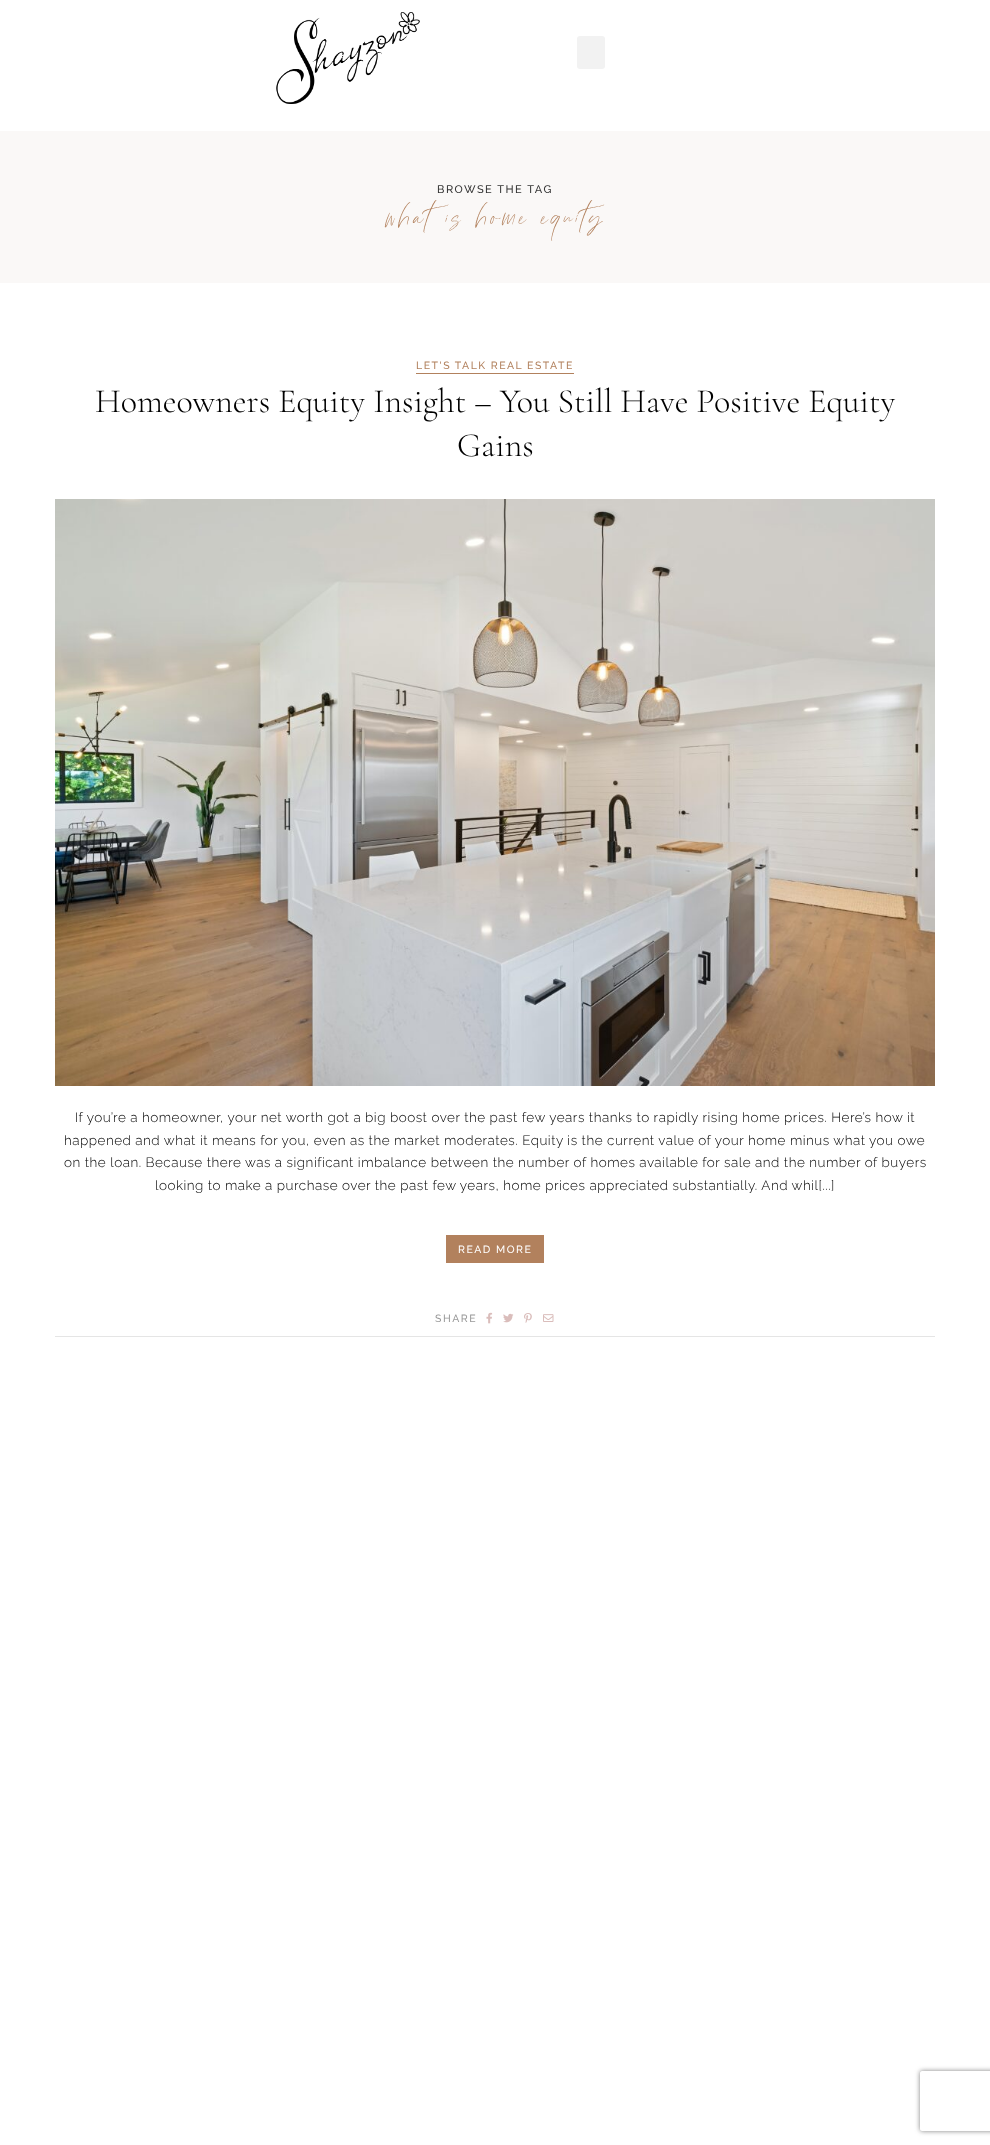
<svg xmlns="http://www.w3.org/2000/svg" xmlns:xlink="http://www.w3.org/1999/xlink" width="990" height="2145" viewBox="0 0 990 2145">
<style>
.cls-1{font:500 11px Raleway;letter-spacing:1.5px;fill:#333333}
.cls-2{font:28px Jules;letter-spacing:3px;fill:#b2815d}
.cls-3{font:500 10.5px Raleway;letter-spacing:1.5px;fill:#b2815d}
.cls-4{font:300 34px Cormorant Garamond;fill:#000000}
.cls-5{font:300 13.5px Raleway;letter-spacing:0.5px;fill:#000000}
.cls-6{font:500 10.5px Raleway;letter-spacing:1.5px;fill:#ffffff}
.cls-7{font:500 10.5px Raleway;letter-spacing:1.5px;fill:#999999}
</style>
<defs>
<clipPath id="clip1"><path d="M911 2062H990V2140H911ZM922 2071H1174C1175 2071 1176 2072 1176 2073V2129C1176 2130 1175 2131 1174 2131H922C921 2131 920 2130 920 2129V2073C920 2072 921 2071 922 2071Z" clip-rule="evenodd"/></clipPath>
</defs>
<rect width="100%" height="100%" fill="#ffffff"/>
<image xlink:href="image0.png" x="276" y="12" width="144" height="92"/>
<rect fill="#f2f2f2" x="577" y="36" width="28" height="33" rx="3"/>
<rect fill="#faf8f7" x="0" y="131" width="990" height="152"/>
<rect fill="#e5e5e5" x="55" y="1336" width="880" height="1"/>
<rect fill="#b2815d" x="416" y="373" width="158" height="1"/>
<image xlink:href="image1.png" x="55" y="499" width="880" height="587"/>
<rect fill="#b2815d" x="446" y="1235" width="98" height="28"/>
<image xlink:href="image2.png" x="486" y="1312" width="7" height="12"/>
<image xlink:href="image3.png" x="503" y="1313" width="11" height="10"/>
<image xlink:href="image4.png" x="524" y="1313" width="8" height="10"/>
<image xlink:href="image5.png" x="543" y="1314" width="11" height="8"/>
<g clip-path="url(#clip1)">
<rect fill="#808080" filter="blur(2.5px)" x="920" y="2071" width="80" height="60" rx="2"/>
</g>
<text class="cls-1" x="437" y="193">BROWSE THE TAG</text>
<text class="cls-2" x="384" y="224">what is home equity</text>
<text class="cls-3" x="416" y="369">LET'S TALK REAL ESTATE</text>
<text class="cls-4" x="95" y="412">Homeowners Equity Insight – You Still Have Positive Equity</text>
<text class="cls-4" x="457" y="456">Gains</text>
<text class="cls-5" x="75" y="1122">If you’re a homeowner, your net worth got a big boost over the past few years thanks to rapidly rising home prices. Here’s how it</text>
<text class="cls-5"><tspan x="64" y="1145">happened and what it means for you, even as the market moderates. Equity is the current value of your home minus what you owe</tspan><tspan x="64" y="1167">on the loan. Because there was a significant imbalance between the number of homes available for sale and the number of buyers</tspan></text>
<text class="cls-5" x="155" y="1190">looking to make a purchase over the past few years, home prices appreciated substantially. And whil[...]</text>
<text class="cls-6" x="458" y="1253">READ MORE</text>
<text class="cls-7" x="435" y="1322">SHARE</text>
</svg>
